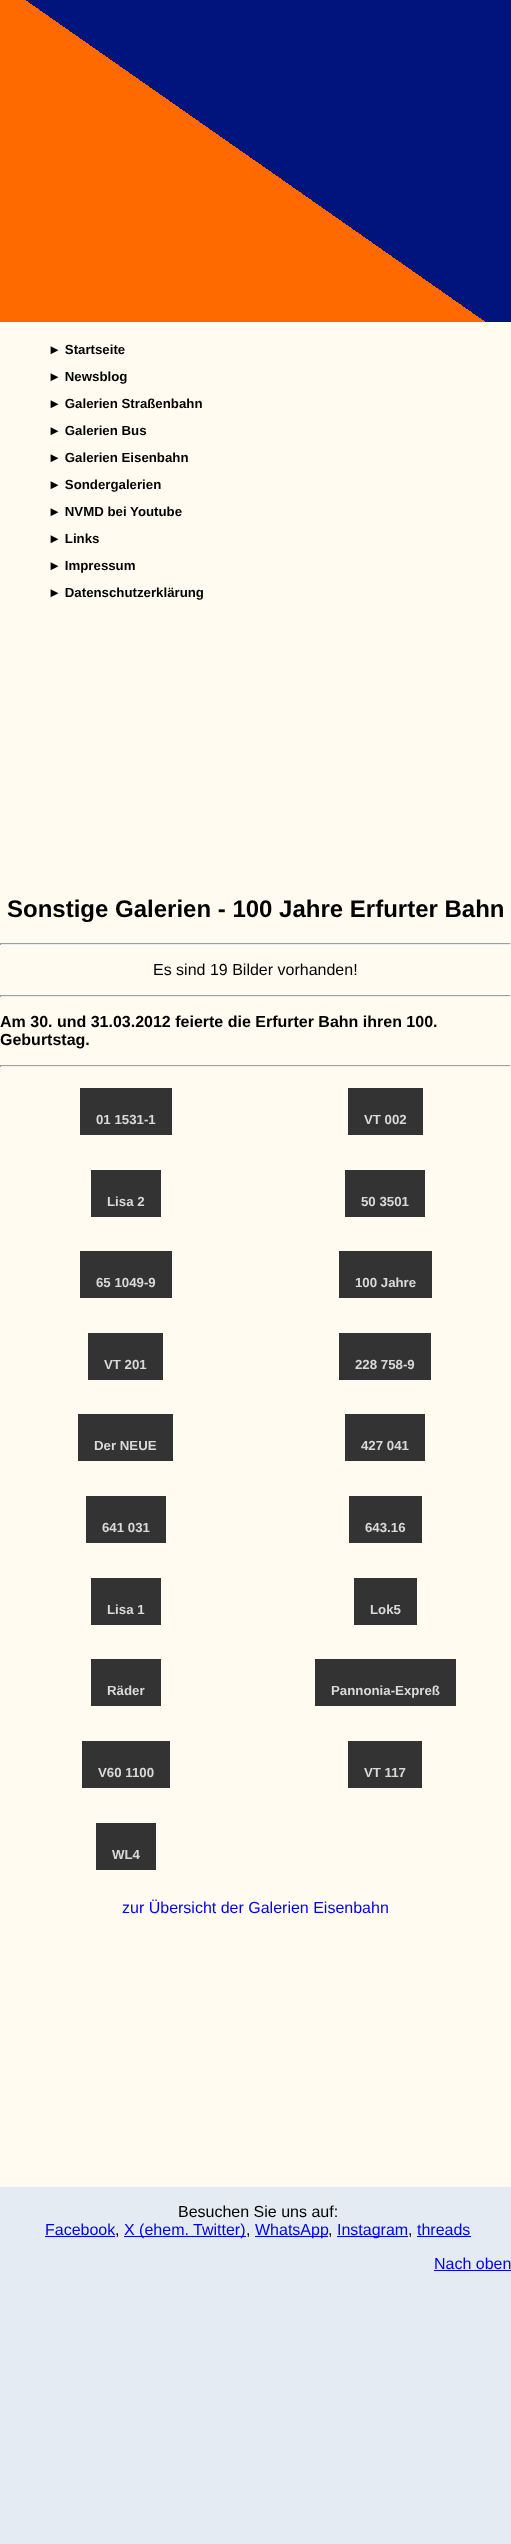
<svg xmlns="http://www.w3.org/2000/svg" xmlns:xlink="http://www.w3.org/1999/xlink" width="511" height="2544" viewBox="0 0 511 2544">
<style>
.cls-1{font:bold 13.25px Liberation Sans;fill:#000000}
.cls-2{font:bold 24px Liberation Sans;fill:#000000}
.cls-3{font:16px Liberation Sans;fill:#000000}
.cls-4{font:bold 16px Liberation Sans;fill:#000000}
.cls-5{font:bold 13.25px Liberation Sans;fill:#d9d9d9}
.cls-6{font:16px Liberation Sans;fill:#0000ee}
</style>
<defs>
<linearGradient id="g1" gradientUnits="userSpaceOnUse" x1="96" y1="389" x2="415" y2="-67"><stop offset="0.5" stop-color="#fe6a00"/><stop offset="0.5" stop-color="#01147d"/></linearGradient>
</defs>
<rect width="100%" height="100%" fill="#fffbf0"/>
<rect fill="url(#g1)" x="0" y="0" width="511" height="322"/>
<rect fill="#9f9f9f" x="0" y="943" width="511" height="1"/>
<rect fill="#eeeeee" x="510" y="943" width="1" height="2"/>
<rect fill="#eeeeee" x="0" y="944" width="511" height="1"/>
<rect fill="#9f9f9f" x="0" y="943" width="1" height="2"/>
<rect fill="#9f9f9f" x="0" y="995" width="511" height="1"/>
<rect fill="#eeeeee" x="510" y="995" width="1" height="2"/>
<rect fill="#eeeeee" x="0" y="996" width="511" height="1"/>
<rect fill="#9f9f9f" x="0" y="995" width="1" height="2"/>
<rect fill="#9f9f9f" x="0" y="1065" width="511" height="1"/>
<rect fill="#eeeeee" x="510" y="1065" width="1" height="2"/>
<rect fill="#eeeeee" x="0" y="1066" width="511" height="1"/>
<rect fill="#9f9f9f" x="0" y="1065" width="1" height="2"/>
<rect fill="#333333" x="80" y="1088" width="92" height="47"/>
<rect fill="#333333" x="348" y="1088" width="75" height="47"/>
<rect fill="#333333" x="91" y="1170" width="70" height="47"/>
<rect fill="#333333" x="345" y="1170" width="80" height="47"/>
<rect fill="#333333" x="80" y="1251" width="92" height="47"/>
<rect fill="#333333" x="339" y="1251" width="93" height="47"/>
<rect fill="#333333" x="88" y="1333" width="75" height="47"/>
<rect fill="#333333" x="339" y="1333" width="92" height="47"/>
<rect fill="#333333" x="78" y="1414" width="95" height="47"/>
<rect fill="#333333" x="345" y="1414" width="80" height="47"/>
<rect fill="#333333" x="86" y="1496" width="80" height="47"/>
<rect fill="#333333" x="349" y="1496" width="73" height="47"/>
<rect fill="#333333" x="91" y="1578" width="70" height="47"/>
<rect fill="#333333" x="354" y="1578" width="63" height="47"/>
<rect fill="#333333" x="91" y="1659" width="70" height="47"/>
<rect fill="#333333" x="315" y="1659" width="141" height="47"/>
<rect fill="#333333" x="82" y="1741" width="88" height="47"/>
<rect fill="#333333" x="348" y="1741" width="74" height="47"/>
<rect fill="#333333" x="96" y="1823" width="60" height="47"/>
<rect fill="#e4ebf2" x="0" y="2187" width="511" height="357"/>
<rect fill="#0000ee" x="45" y="2236" width="70" height="1"/>
<rect fill="#0000ee" x="124" y="2236" width="122" height="1"/>
<rect fill="#0000ee" x="255" y="2236" width="73" height="1"/>
<rect fill="#0000ee" x="337" y="2236" width="71" height="1"/>
<rect fill="#0000ee" x="417" y="2236" width="54" height="1"/>
<rect fill="#0000ee" x="434" y="2270" width="77" height="1"/>
<text class="cls-1" x="48" y="354">► Startseite</text>
<text class="cls-1" x="48" y="381">► Newsblog</text>
<text class="cls-1" x="48" y="408">► Galerien Straßenbahn</text>
<text class="cls-1" x="48" y="435">► Galerien Bus</text>
<text class="cls-1" x="48" y="462">► Galerien Eisenbahn</text>
<text class="cls-1" x="48" y="489">► Sondergalerien</text>
<text class="cls-1" x="48" y="516">► NVMD bei Youtube</text>
<text class="cls-1" x="48" y="543">► Links</text>
<text class="cls-1" x="48" y="570">► Impressum</text>
<text class="cls-1" x="48" y="597">► Datenschutzerklärung</text>
<text class="cls-2" x="7" y="917">Sonstige Galerien - 100 Jahre Erfurter Bahn</text>
<text class="cls-3" x="153" y="975">Es sind 19 Bilder vorhanden!</text>
<text class="cls-4"><tspan x="0" y="1027">Am 30. und 31.03.2012 feierte die Erfurter Bahn ihren 100.</tspan><tspan x="0" y="1045">Geburtstag.</tspan></text>
<text class="cls-5" x="96" y="1124">01 1531-1</text>
<text class="cls-5" x="364" y="1124">VT 002</text>
<text class="cls-5" x="107" y="1206">Lisa 2</text>
<text class="cls-5" x="361" y="1206">50 3501</text>
<text class="cls-5" x="96" y="1287">65 1049-9</text>
<text class="cls-5" x="355" y="1287">100 Jahre</text>
<text class="cls-5" x="104" y="1369">VT 201</text>
<text class="cls-5" x="355" y="1369">228 758-9</text>
<text class="cls-5" x="94" y="1450">Der NEUE</text>
<text class="cls-5" x="361" y="1450">427 041</text>
<text class="cls-5" x="102" y="1532">641 031</text>
<text class="cls-5" x="365" y="1532">643.16</text>
<text class="cls-5" x="107" y="1614">Lisa 1</text>
<text class="cls-5" x="370" y="1614">Lok5</text>
<text class="cls-5" x="107" y="1695">Räder</text>
<text class="cls-5" x="331" y="1695">Pannonia-Expreß</text>
<text class="cls-5" x="98" y="1777">V60 1100</text>
<text class="cls-5" x="364" y="1777">VT 117</text>
<text class="cls-5" x="112" y="1859">WL4</text>
<text class="cls-6" x="122" y="1913">zur Übersicht der Galerien Eisenbahn</text>
<text class="cls-3" x="178" y="2217">Besuchen Sie uns auf:</text>
<text class="cls-6" x="45" y="2235">Facebook</text>
<text class="cls-3" x="115" y="2235">,</text>
<text class="cls-6" x="124" y="2235">X (ehem. Twitter)</text>
<text class="cls-3" x="246" y="2235">,</text>
<text class="cls-6" x="255" y="2235">WhatsApp</text>
<text class="cls-3" x="328" y="2235">,</text>
<text class="cls-6" x="337" y="2235">Instagram</text>
<text class="cls-3" x="408" y="2235">,</text>
<text class="cls-6" x="417" y="2235">threads</text>
<text class="cls-6" x="434" y="2269">Nach oben</text>
</svg>
